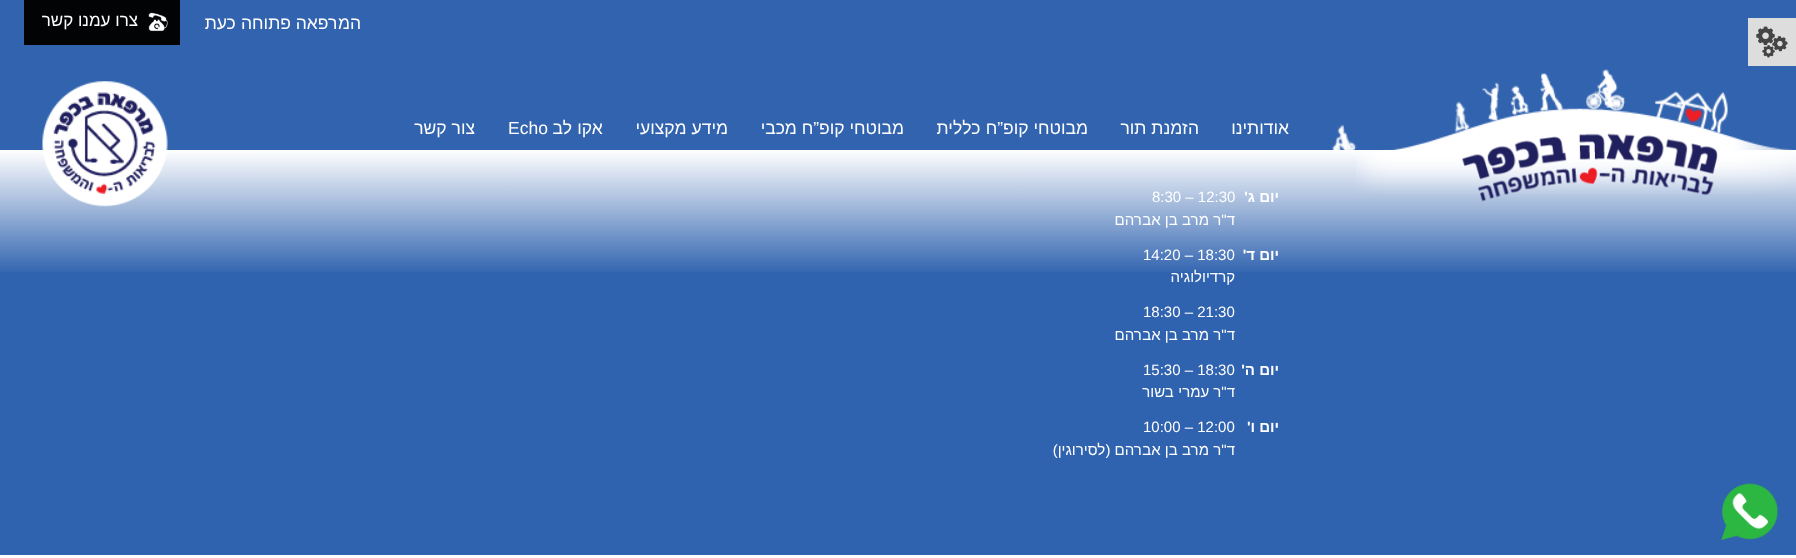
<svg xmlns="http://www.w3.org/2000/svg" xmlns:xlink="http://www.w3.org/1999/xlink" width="1796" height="558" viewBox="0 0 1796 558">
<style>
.cls-1{font:17.5px Arimo;direction:rtl;fill:#ffffff}
.cls-2{font:17px Arimo;direction:rtl;fill:#ffffff}
.cls-3{font:17.5px Arimo;fill:#ffffff}
.cls-4{font:bold 15px Arimo;direction:rtl;fill:#ffffff}
.cls-5{font:15px Arimo;fill:#ffffff}
.cls-6{font:15px Arimo;direction:rtl;fill:#ffffff}
</style>
<defs>
<linearGradient id="g1" gradientUnits="userSpaceOnUse" x1="898" y1="150" x2="898" y2="275"><stop offset="0" stop-color="#ffffff"/><stop offset="1" stop-color="#ffffff" stop-opacity="0"/></linearGradient>
</defs>
<rect width="100%" height="100%" fill="#ffffff"/>
<rect fill="#3063af" x="0" y="151" width="1796" height="404"/>
<rect fill="#000000" fill-opacity="0.15" filter="blur(2px)" x="0" y="1" width="1796" height="150"/>
<rect fill="#3263af" x="0" y="0" width="1796" height="150"/>
<rect fill="#dddddd" x="1748" y="18" width="48" height="48"/>
<image xlink:href="image0.png" x="1756" y="26" width="32" height="32"/>
<rect fill="#020305" x="24" y="0" width="156" height="45"/>
<image xlink:href="image1.png" x="148" y="12" width="20" height="20"/>
<image xlink:href="image6.png" x="1721" y="483" width="57" height="57"/>
<text class="cls-1" x="361" y="29">המרפאה פתוחה כעת</text>
<text class="cls-2" x="138" y="26">צרו עמנו קשר</text>
<text class="cls-1" x="1289" y="134">אודותינו</text>
<text class="cls-1" x="1199" y="134">הזמנת תור</text>
<text class="cls-1" x="1088" y="134">מבוטחי קופ”ח כללית</text>
<text class="cls-1" x="904" y="134">מבוטחי קופ”ח מכבי</text>
<text class="cls-1" x="728" y="134">מידע מקצועי</text>
<text class="cls-1" x="603" y="134">אקו לב</text>
<text class="cls-3" x="508" y="134">Echo</text>
<text class="cls-1" x="475" y="134">צור קשר</text>
<text class="cls-4" x="1279" y="202">יום ג'</text>
<text class="cls-5" x="1152" y="202">8:30 – 12:30</text>
<text class="cls-6" x="1235" y="225">ד"ר מרב בן אברהם</text>
<text class="cls-4" x="1279" y="260">יום ד'</text>
<text class="cls-5" x="1143" y="260">14:20 – 18:30</text>
<text class="cls-6" x="1235" y="282">קרדיולוגיה</text>
<rect fill="url(#g1)" x="0" y="150" width="1796" height="122"/>
<image xlink:href="image3.png" x="1356" y="108" width="440" height="86"/>
<image xlink:href="image4.png" x="1462" y="133" width="256" height="69"/>
<image xlink:href="image2.png" x="1332" y="69" width="396" height="81"/>
<image xlink:href="image5.png" x="42" y="81" width="126" height="126"/>
<text class="cls-5" x="1143" y="317">18:30 – 21:30</text>
<text class="cls-6" x="1235" y="340">ד"ר מרב בן אברהם</text>
<text class="cls-4" x="1279" y="375">יום ה'</text>
<text class="cls-5" x="1143" y="375">15:30 – 18:30</text>
<text class="cls-6" x="1235" y="397">ד"ר עמרי בשור</text>
<text class="cls-4" x="1279" y="432">יום ו'</text>
<text class="cls-5" x="1143" y="432">10:00 – 12:00</text>
<text class="cls-6" x="1235" y="455">ד"ר מרב בן אברהם (לסירוגין)</text>
</svg>
